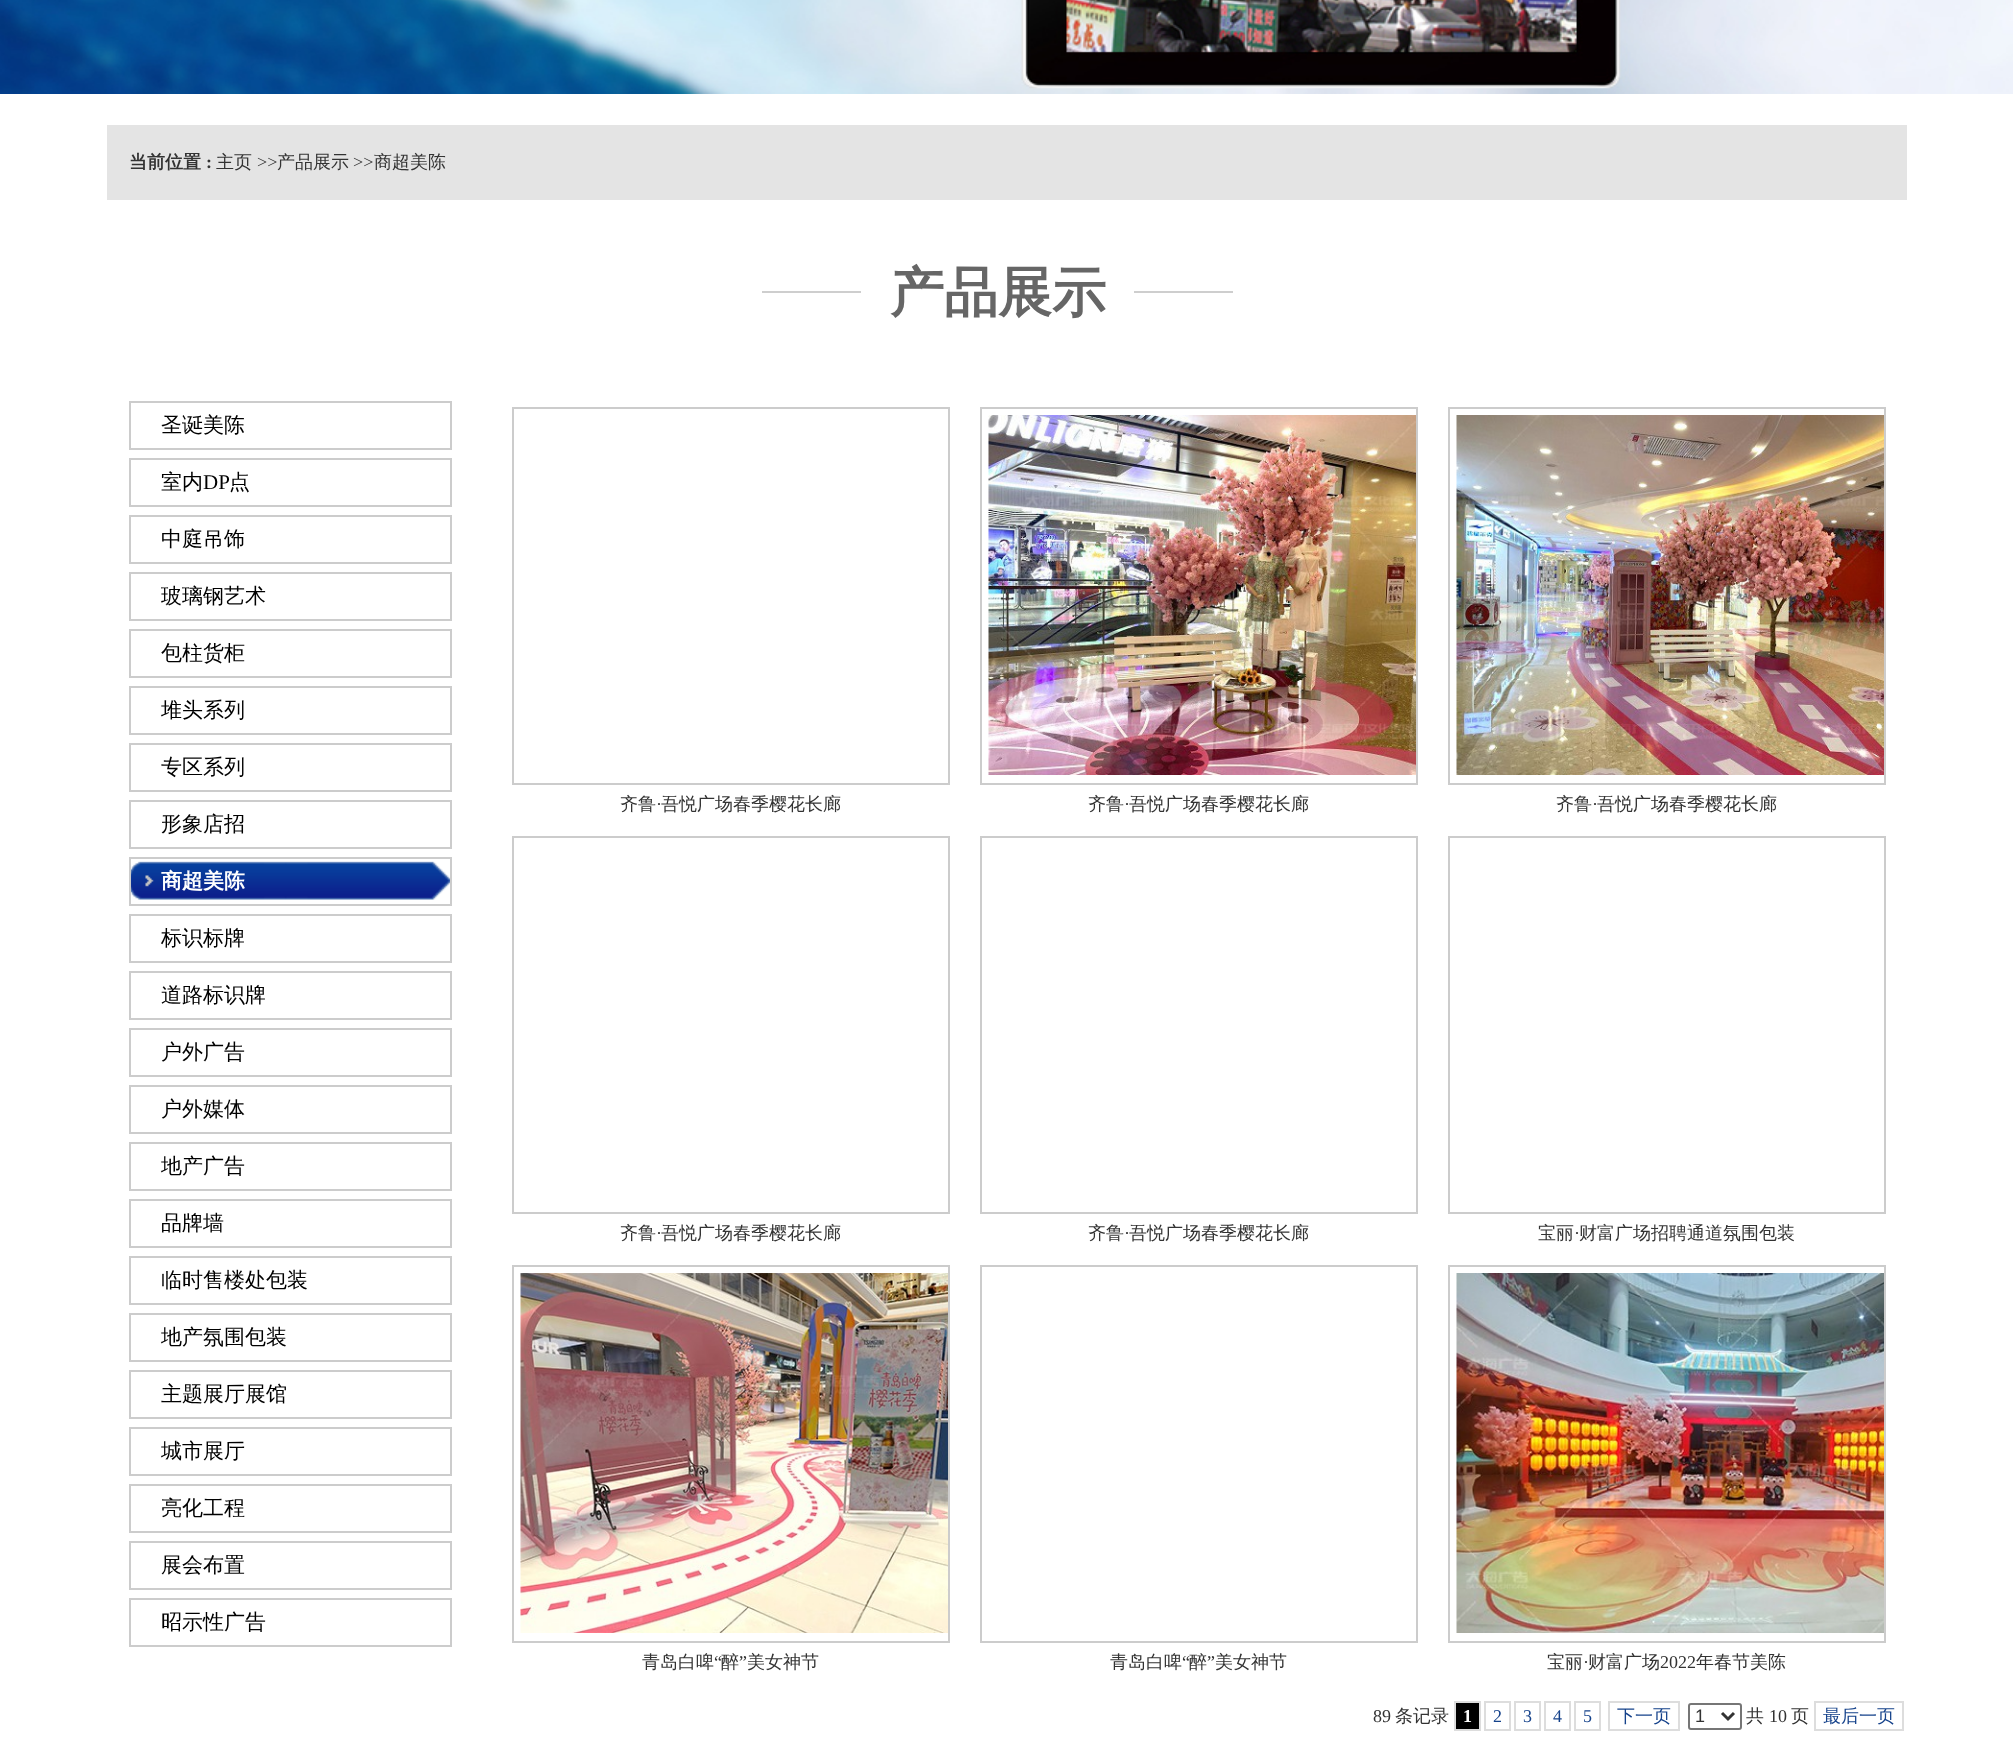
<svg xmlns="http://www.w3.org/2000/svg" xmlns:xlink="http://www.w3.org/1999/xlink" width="2013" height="1761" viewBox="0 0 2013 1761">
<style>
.cls-1{font:bold 18px WenQuanYi Zen Hei;fill:#333333}
.cls-2{font:bold 18px Liberation Serif;fill:#333333}
.cls-3{font:500 18px WenQuanYi Zen Hei;fill:#333333}
.cls-4{font:18px Liberation Serif;fill:#333333}
.cls-5{font:bold 54px WenQuanYi Zen Hei;fill:#666666}
.cls-6{font:500 21px WenQuanYi Zen Hei;fill:#000000}
.cls-7{font:21px Liberation Serif;fill:#000000}
.cls-8{font:bold 21px WenQuanYi Zen Hei;fill:#ffffff}
.cls-9{font:bold 18px Liberation Serif;fill:#ffffff}
.cls-10{font:18px Liberation Serif;fill:#15428b}
.cls-11{font:500 18px WenQuanYi Zen Hei;fill:#15428b}
.cls-12{font:18px Liberation Sans;fill:#333333}
</style>
<rect width="100%" height="100%" fill="#ffffff"/>
<image xlink:href="image0.png" x="0" y="0" width="2013" height="94"/>
<rect fill="#e4e4e4" x="107" y="125" width="1800" height="75"/>
<rect fill="#cecece" x="762" y="291" width="99" height="2"/>
<rect fill="#cecece" x="1134" y="291" width="99" height="2"/>
<rect fill="none" stroke="#cccccc" stroke-width="2" x="130" y="402" width="321" height="47"/>
<rect fill="none" stroke="#cccccc" stroke-width="2" x="130" y="459" width="321" height="47"/>
<rect fill="none" stroke="#cccccc" stroke-width="2" x="130" y="516" width="321" height="47"/>
<rect fill="none" stroke="#cccccc" stroke-width="2" x="130" y="573" width="321" height="47"/>
<rect fill="none" stroke="#cccccc" stroke-width="2" x="130" y="630" width="321" height="47"/>
<rect fill="none" stroke="#cccccc" stroke-width="2" x="130" y="687" width="321" height="47"/>
<rect fill="none" stroke="#cccccc" stroke-width="2" x="130" y="744" width="321" height="47"/>
<rect fill="none" stroke="#cccccc" stroke-width="2" x="130" y="801" width="321" height="47"/>
<image xlink:href="image1.png" x="131" y="861" width="319" height="39"/>
<rect fill="none" stroke="#cccccc" stroke-width="2" x="130" y="858" width="321" height="47"/>
<rect fill="none" stroke="#cccccc" stroke-width="2" x="130" y="915" width="321" height="47"/>
<rect fill="none" stroke="#cccccc" stroke-width="2" x="130" y="972" width="321" height="47"/>
<rect fill="none" stroke="#cccccc" stroke-width="2" x="130" y="1029" width="321" height="47"/>
<rect fill="none" stroke="#cccccc" stroke-width="2" x="130" y="1086" width="321" height="47"/>
<rect fill="none" stroke="#cccccc" stroke-width="2" x="130" y="1143" width="321" height="47"/>
<rect fill="none" stroke="#cccccc" stroke-width="2" x="130" y="1200" width="321" height="47"/>
<rect fill="none" stroke="#cccccc" stroke-width="2" x="130" y="1257" width="321" height="47"/>
<rect fill="none" stroke="#cccccc" stroke-width="2" x="130" y="1314" width="321" height="47"/>
<rect fill="none" stroke="#cccccc" stroke-width="2" x="130" y="1371" width="321" height="47"/>
<rect fill="none" stroke="#cccccc" stroke-width="2" x="130" y="1428" width="321" height="47"/>
<rect fill="none" stroke="#cccccc" stroke-width="2" x="130" y="1485" width="321" height="47"/>
<rect fill="none" stroke="#cccccc" stroke-width="2" x="130" y="1542" width="321" height="47"/>
<rect fill="none" stroke="#cccccc" stroke-width="2" x="130" y="1599" width="321" height="47"/>
<rect fill="none" stroke="#cccccc" stroke-width="2" x="513" y="408" width="436" height="376"/>
<rect fill="none" stroke="#cccccc" stroke-width="2" x="981" y="408" width="436" height="376"/>
<image xlink:href="image2.png" x="988" y="415" width="428" height="360"/>
<rect fill="none" stroke="#cccccc" stroke-width="2" x="1449" y="408" width="436" height="376"/>
<image xlink:href="image3.png" x="1456" y="415" width="428" height="360"/>
<rect fill="none" stroke="#cccccc" stroke-width="2" x="513" y="837" width="436" height="376"/>
<rect fill="none" stroke="#cccccc" stroke-width="2" x="981" y="837" width="436" height="376"/>
<rect fill="none" stroke="#cccccc" stroke-width="2" x="1449" y="837" width="436" height="376"/>
<rect fill="none" stroke="#cccccc" stroke-width="2" x="513" y="1266" width="436" height="376"/>
<image xlink:href="image4.png" x="520" y="1273" width="428" height="360"/>
<rect fill="none" stroke="#cccccc" stroke-width="2" x="981" y="1266" width="436" height="376"/>
<rect fill="none" stroke="#cccccc" stroke-width="2" x="1449" y="1266" width="436" height="376"/>
<image xlink:href="image5.png" x="1456" y="1273" width="428" height="360"/>
<rect fill="#000000" stroke="#dddddd" stroke-width="2" x="1455" y="1702" width="25" height="28"/>
<rect fill="none" stroke="#dddddd" stroke-width="2" x="1485" y="1702" width="25" height="28"/>
<rect fill="none" stroke="#dddddd" stroke-width="2" x="1515" y="1702" width="25" height="28"/>
<rect fill="none" stroke="#dddddd" stroke-width="2" x="1545" y="1702" width="25" height="28"/>
<rect fill="none" stroke="#dddddd" stroke-width="2" x="1575" y="1702" width="25" height="28"/>
<rect fill="none" stroke="#dddddd" stroke-width="2" x="1609" y="1702" width="70" height="28"/>
<rect fill="none" stroke="#767676" stroke-width="2" x="1689" y="1704" width="52" height="25" rx="2"/>
<path fill="none" stroke="#333333" stroke-width="3" d="M1722 1713L1728 1719L1734 1713"/>
<rect fill="none" stroke="#dddddd" stroke-width="2" x="1815" y="1702" width="88" height="28"/>
<text class="cls-1" x="129" y="168">当前位置</text>
<text class="cls-2" x="206" y="168">:</text>
<text class="cls-3" x="216" y="168">主页</text>
<text class="cls-4" x="257" y="168">&gt;&gt;</text>
<text class="cls-3" x="277" y="168">产品展示</text>
<text class="cls-4" x="353" y="168">&gt;&gt;</text>
<text class="cls-3" x="374" y="168">商超美陈</text>
<text class="cls-5" x="890" y="311">产品展示</text>
<text class="cls-6" x="161" y="432">圣诞美陈</text>
<text class="cls-6" x="161" y="489">室内</text>
<text class="cls-7" x="203" y="489">DP</text>
<text class="cls-6" x="229" y="489">点</text>
<text class="cls-6" x="161" y="546">中庭吊饰</text>
<text class="cls-6" x="161" y="603">玻璃钢艺术</text>
<text class="cls-6" x="161" y="660">包柱货柜</text>
<text class="cls-6" x="161" y="717">堆头系列</text>
<text class="cls-6" x="161" y="774">专区系列</text>
<text class="cls-6" x="161" y="831">形象店招</text>
<text class="cls-8" x="161" y="888">商超美陈</text>
<text class="cls-6" x="161" y="945">标识标牌</text>
<text class="cls-6" x="161" y="1002">道路标识牌</text>
<text class="cls-6" x="161" y="1059">户外广告</text>
<text class="cls-6" x="161" y="1116">户外媒体</text>
<text class="cls-6" x="161" y="1173">地产广告</text>
<text class="cls-6" x="161" y="1230">品牌墙</text>
<text class="cls-6" x="161" y="1287">临时售楼处包装</text>
<text class="cls-6" x="161" y="1344">地产氛围包装</text>
<text class="cls-6" x="161" y="1401">主题展厅展馆</text>
<text class="cls-6" x="161" y="1458">城市展厅</text>
<text class="cls-6" x="161" y="1515">亮化工程</text>
<text class="cls-6" x="161" y="1572">展会布置</text>
<text class="cls-6" x="161" y="1629">昭示性广告</text>
<text class="cls-3" x="620" y="810">齐鲁</text>
<text class="cls-4" x="656" y="810">·</text>
<text class="cls-3" x="661" y="810">吾悦广场春季樱花长廊</text>
<text class="cls-3" x="1088" y="810">齐鲁</text>
<text class="cls-4" x="1124" y="810">·</text>
<text class="cls-3" x="1129" y="810">吾悦广场春季樱花长廊</text>
<text class="cls-3" x="1556" y="810">齐鲁</text>
<text class="cls-4" x="1592" y="810">·</text>
<text class="cls-3" x="1597" y="810">吾悦广场春季樱花长廊</text>
<text class="cls-3" x="620" y="1239">齐鲁</text>
<text class="cls-4" x="656" y="1239">·</text>
<text class="cls-3" x="661" y="1239">吾悦广场春季樱花长廊</text>
<text class="cls-3" x="1088" y="1239">齐鲁</text>
<text class="cls-4" x="1124" y="1239">·</text>
<text class="cls-3" x="1129" y="1239">吾悦广场春季樱花长廊</text>
<text class="cls-3" x="1538" y="1239">宝丽</text>
<text class="cls-4" x="1574" y="1239">·</text>
<text class="cls-3" x="1579" y="1239">财富广场招聘通道氛围包装</text>
<text class="cls-3" x="642" y="1668">青岛白啤</text>
<text class="cls-4" x="714" y="1668">“</text>
<text class="cls-3" x="721" y="1668">醉</text>
<text class="cls-4" x="739" y="1668">”</text>
<text class="cls-3" x="747" y="1668">美女神节</text>
<text class="cls-3" x="1110" y="1668">青岛白啤</text>
<text class="cls-4" x="1182" y="1668">“</text>
<text class="cls-3" x="1189" y="1668">醉</text>
<text class="cls-4" x="1207" y="1668">”</text>
<text class="cls-3" x="1215" y="1668">美女神节</text>
<text class="cls-3" x="1547" y="1668">宝丽</text>
<text class="cls-4" x="1583" y="1668">·</text>
<text class="cls-3" x="1588" y="1668">财富广场</text>
<text class="cls-4" x="1660" y="1668">2022</text>
<text class="cls-3" x="1696" y="1668">年春节美陈</text>
<text class="cls-4" x="1373" y="1722">89</text>
<text class="cls-3" x="1395" y="1722">条记录</text>
<text class="cls-9" x="1463" y="1722">1</text>
<text class="cls-10" x="1493" y="1722">2</text>
<text class="cls-10" x="1523" y="1722">3</text>
<text class="cls-10" x="1553" y="1722">4</text>
<text class="cls-10" x="1583" y="1722">5</text>
<text class="cls-11" x="1617" y="1722">下一页</text>
<text class="cls-12" x="1695" y="1722">1</text>
<text class="cls-3" x="1746" y="1722">共</text>
<text class="cls-4" x="1769" y="1722">10</text>
<text class="cls-3" x="1791" y="1722">页</text>
<text class="cls-11" x="1823" y="1722">最后一页</text>
</svg>
